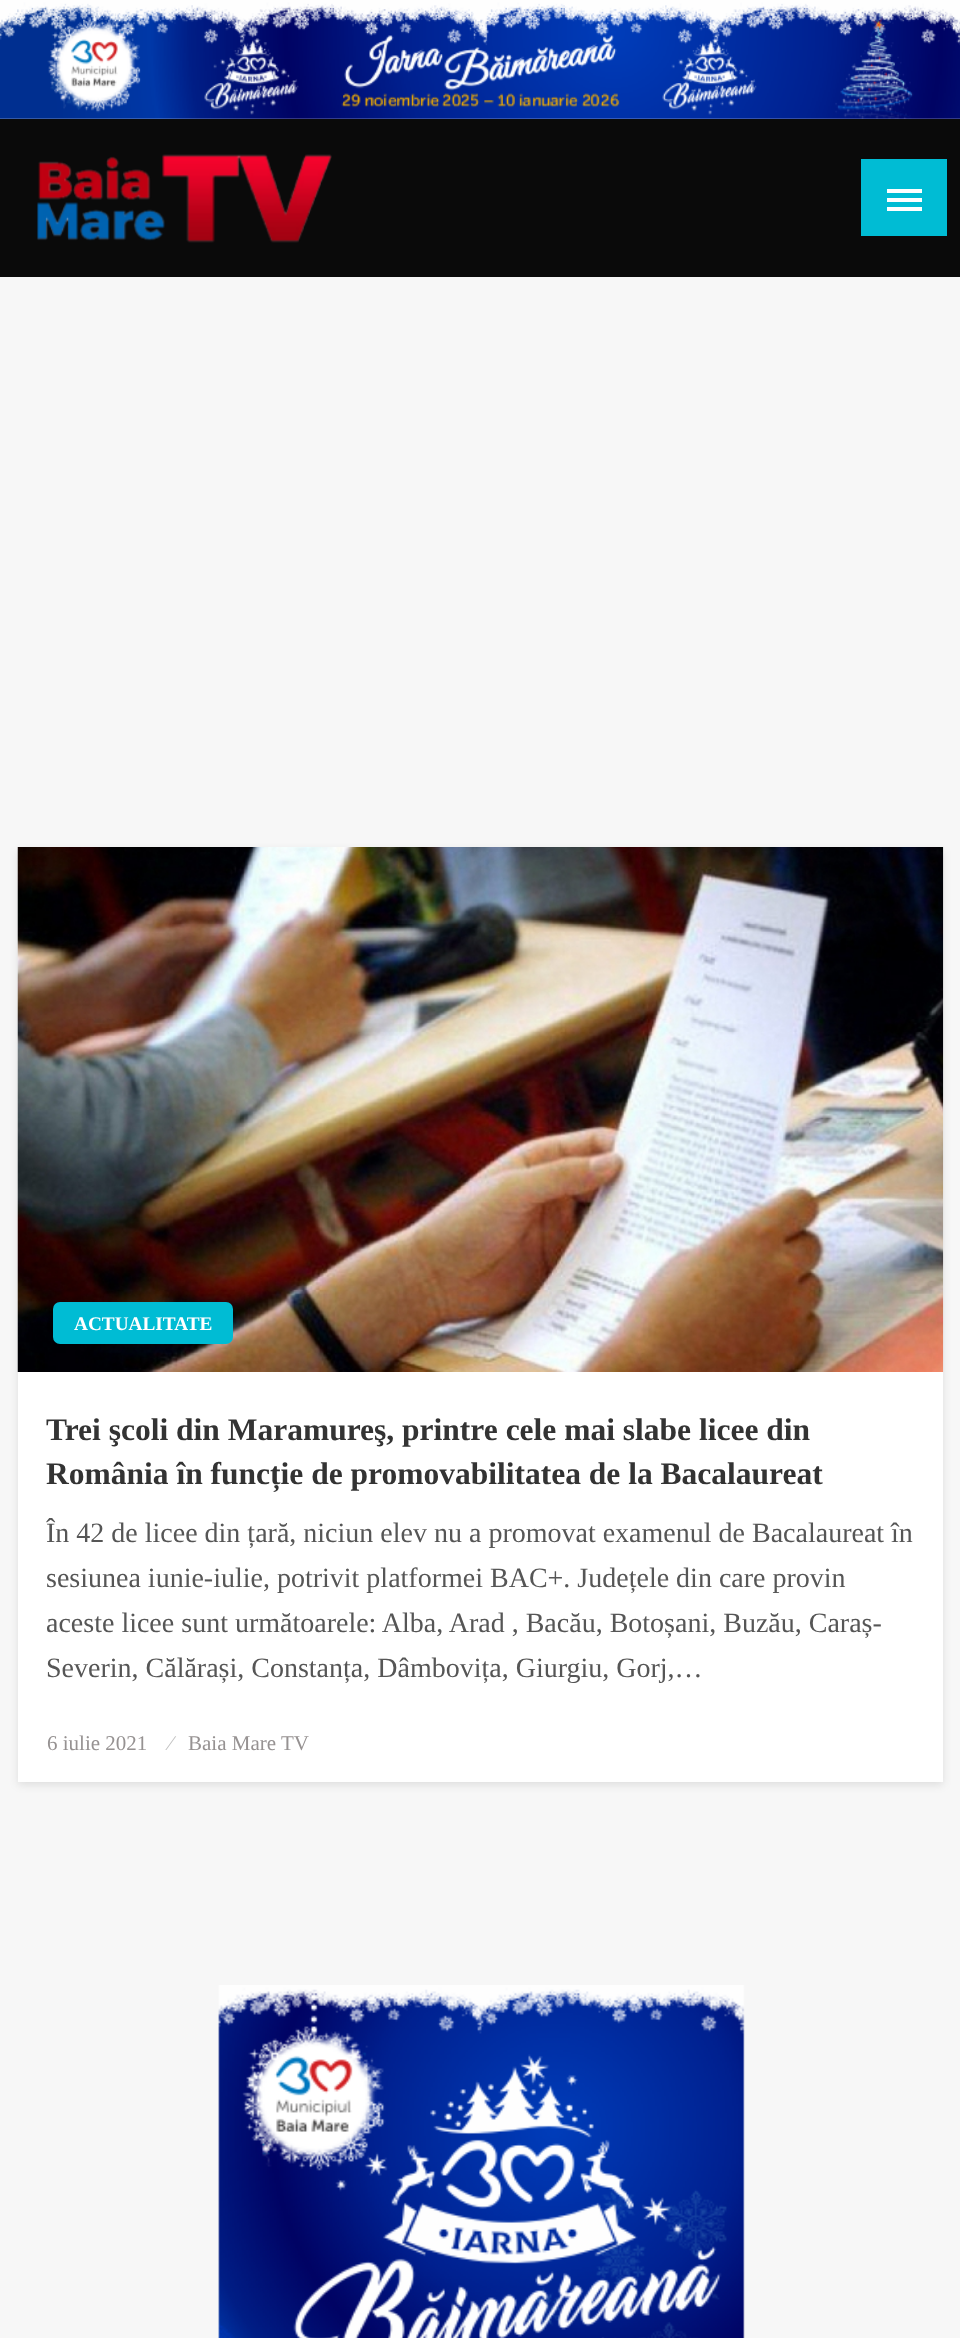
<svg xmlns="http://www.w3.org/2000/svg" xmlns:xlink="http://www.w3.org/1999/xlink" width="960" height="2338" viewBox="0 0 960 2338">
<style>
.cls-1{font:bold 19.25px Liberation Serif;fill:#ffffff}
.cls-2{font:bold 31.5px Liberation Serif;fill:#333333}
.cls-3{font:28px Liberation Serif;fill:#565656}
.cls-4{font:21px Liberation Serif;fill:#969292}
.cls-5{font:21px Liberation Serif;fill:#c0c0c0}
</style>
<rect width="100%" height="100%" fill="#f7f7f7"/>
<image xlink:href="image0.png" x="0" y="0" width="960" height="119"/>
<rect fill="#0a0a0a" x="0" y="119" width="960" height="158"/>
<image xlink:href="image1.png" x="37" y="154" width="295" height="89"/>
<rect fill="#00bcd4" x="861" y="159" width="86" height="77"/>
<rect fill="#ffffff" x="887" y="189" width="35" height="4"/>
<rect fill="#ffffff" x="887" y="198" width="35" height="4"/>
<rect fill="#ffffff" x="887" y="207" width="35" height="4"/>
<rect fill="#000000" fill-opacity="0.1" filter="blur(4.5px)" x="18" y="851" width="925" height="934"/>
<rect fill="#ffffff" x="18" y="1372" width="925" height="410"/>
<image xlink:href="image2.png" x="17" y="847" width="927" height="525"/>
<rect fill="#00bcd4" x="53" y="1302" width="180" height="42" rx="7"/>
<image xlink:href="image3.png" x="218" y="1985" width="527" height="353"/>
<text class="cls-1" x="74" y="1330">ACTUALITATE</text>
<text class="cls-2"><tspan x="46" y="1440">Trei şcoli din Maramureş, printre cele mai slabe licee din</tspan><tspan x="46" y="1484">România în funcție de promovabilitatea de la Bacalaureat</tspan></text>
<text class="cls-3"><tspan x="46" y="1542">În 42 de licee din țară, niciun elev nu a promovat examenul de Bacalaureat în</tspan><tspan x="46" y="1587">sesiunea iunie-iulie, potrivit platformei BAC+. Județele din care provin</tspan><tspan x="46" y="1632">aceste licee sunt următoarele: Alba, Arad , Bacău, Botoșani, Buzău, Caraș-</tspan><tspan x="46" y="1677">Severin, Călărași, Constanța, Dâmbovița, Giurgiu, Gorj,…</tspan></text>
<text class="cls-4" x="47" y="1750">6 iulie 2021</text>
<text class="cls-5" x="169" y="1750">⁄</text>
<text class="cls-4" x="188" y="1750">Baia Mare TV</text>
</svg>
